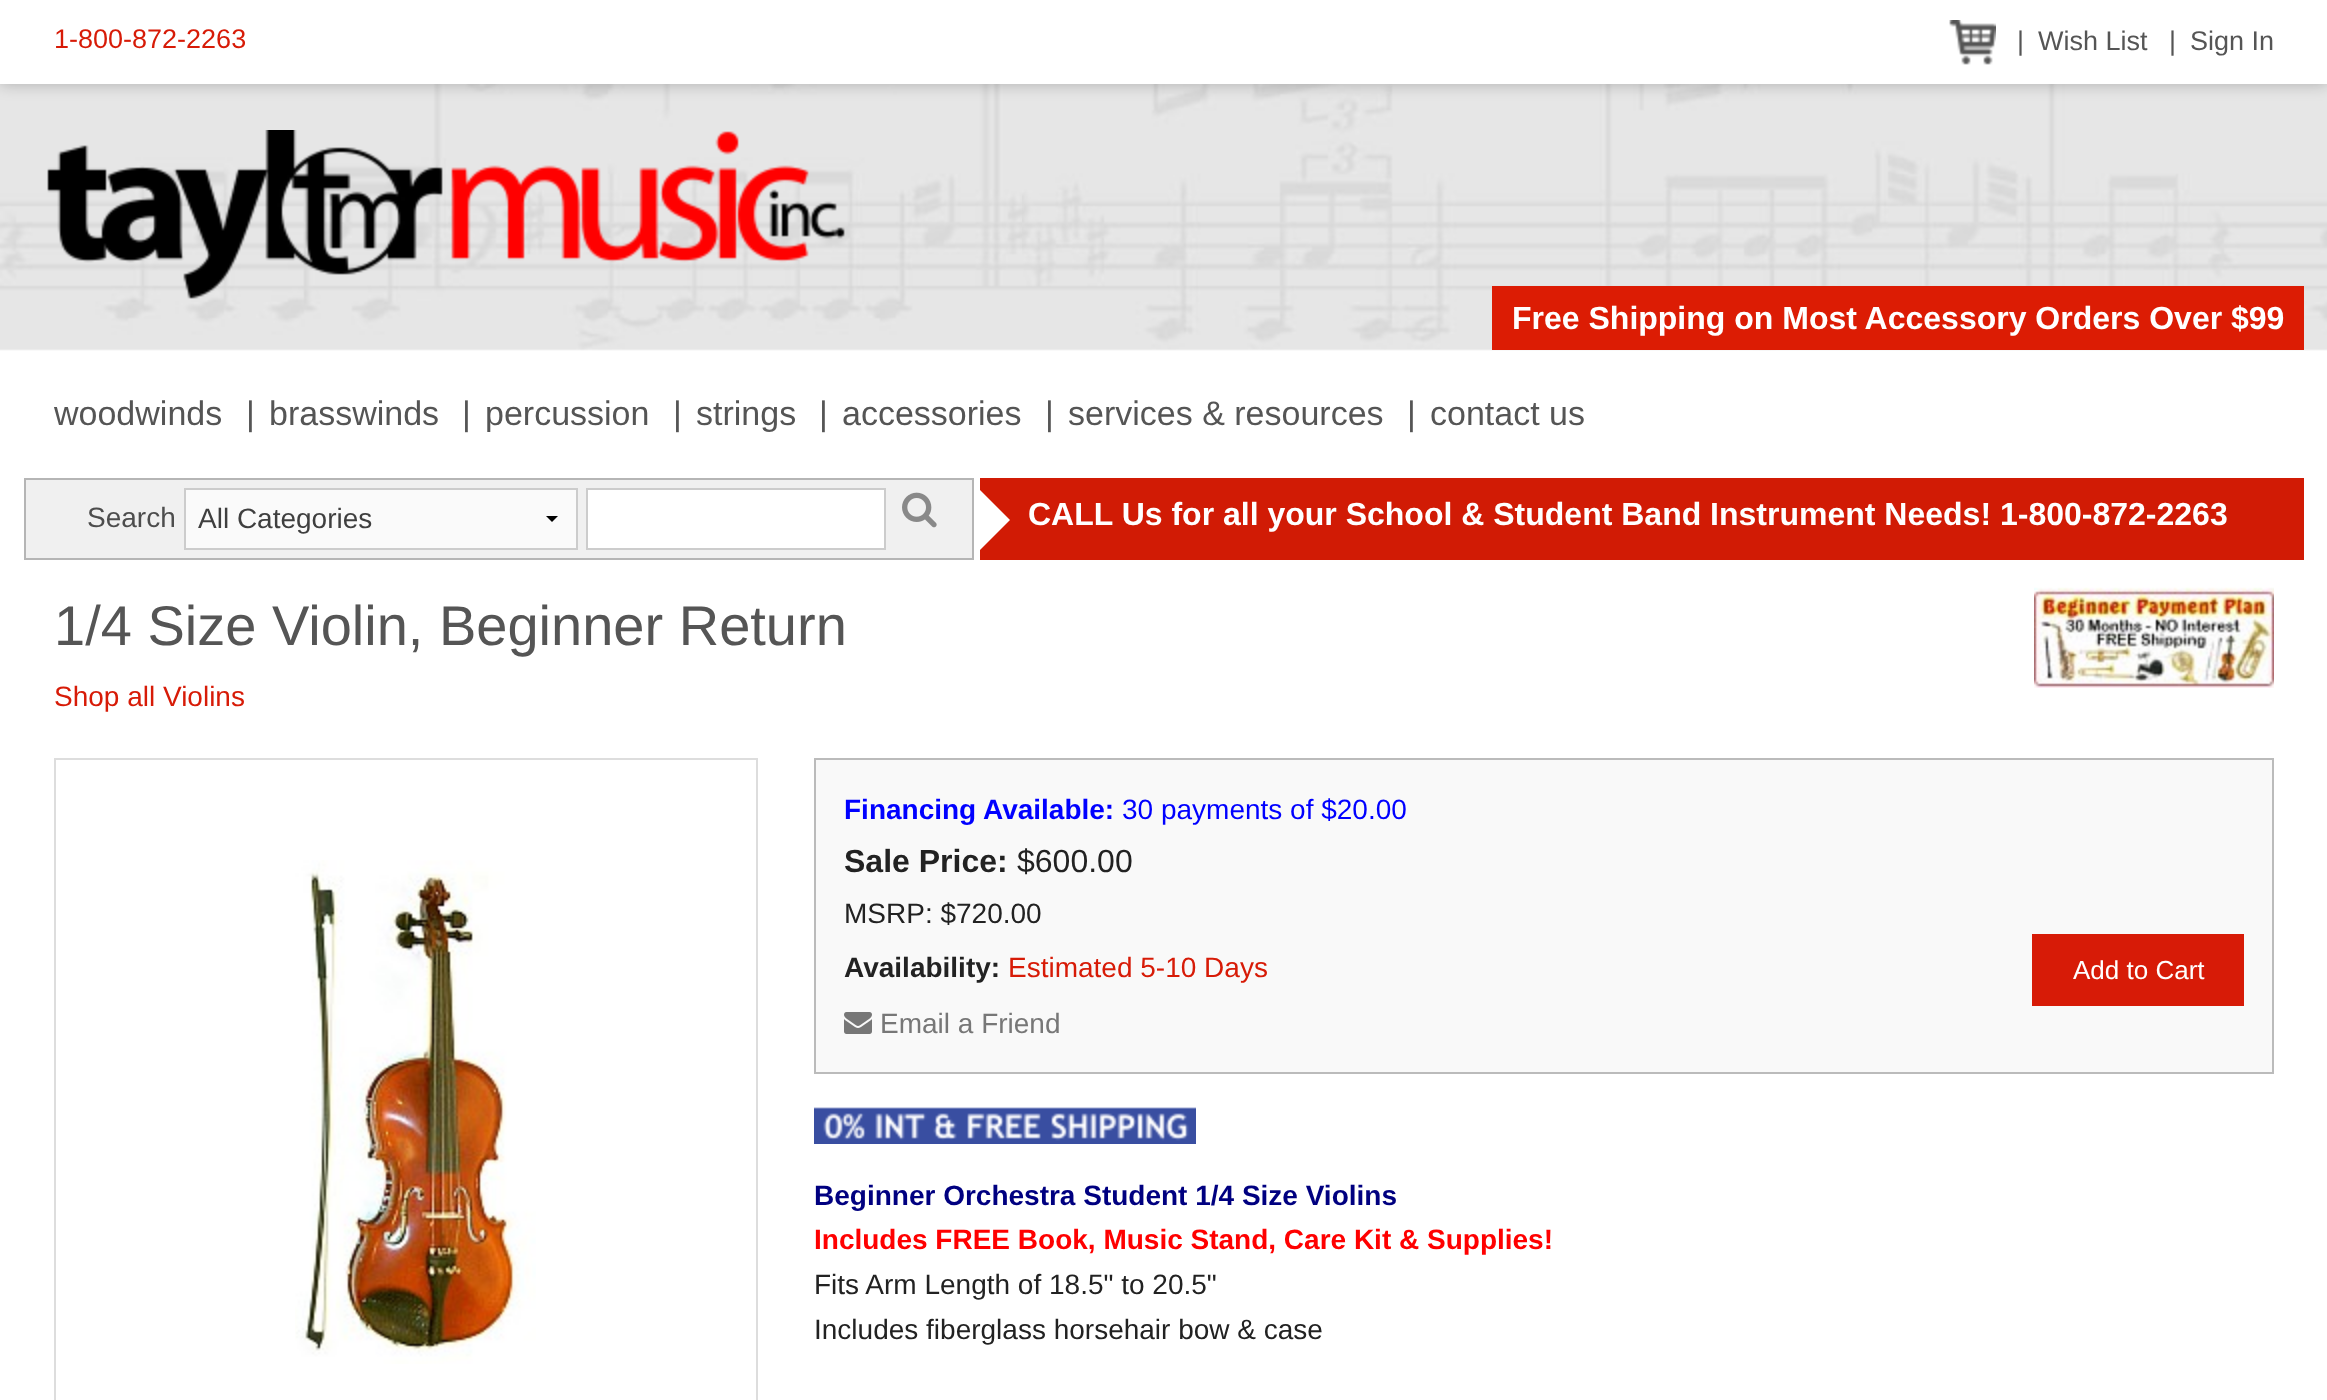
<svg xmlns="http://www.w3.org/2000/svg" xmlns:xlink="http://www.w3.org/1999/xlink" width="2327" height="1400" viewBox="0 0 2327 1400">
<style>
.cls-1{font:27px Liberation Sans;fill:#d71b07}
.cls-2{font:27px Liberation Sans;fill:#555555}
.cls-3{font:bold 32px Liberation Sans;fill:#ffffff}
.cls-4{font:34px Liberation Sans;fill:#555555}
.cls-5{font:28px Liberation Sans;fill:#4d4d4d}
.cls-6{font:28px Liberation Sans;fill:#3f3f3f}
.cls-7{font:56px Liberation Sans;fill:#555555}
.cls-8{font:28px Liberation Sans;fill:#d71b07}
.cls-9{font:bold 28px Liberation Sans;fill:#0000ff}
.cls-10{font:28px Liberation Sans;fill:#0000ff}
.cls-11{font:bold 32px Liberation Sans;fill:#222222}
.cls-12{font:32px Liberation Sans;fill:#222222}
.cls-13{font:28px Liberation Sans;fill:#222222}
.cls-14{font:bold 28px Liberation Sans;fill:#222222}
.cls-15{font:26px Liberation Sans;fill:#ffffff}
.cls-16{font:28px Liberation Sans;fill:#777777}
.cls-17{font:bold 28px Liberation Sans;fill:#000080}
.cls-18{font:bold 28px Liberation Sans;fill:#ff0000}
</style>
<rect width="100%" height="100%" fill="#ffffff"/>
<image xlink:href="image1.png" x="0" y="84" width="2327" height="267"/>
<rect fill="#000000" fill-opacity="0.25" filter="blur(8px)" x="0" y="0" width="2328" height="84"/>
<rect fill="#ffffff" x="0" y="0" width="2327" height="84"/>
<image xlink:href="image0.png" x="1949" y="20" width="47" height="45"/>
<image xlink:href="image2.png" x="47" y="130" width="798" height="169"/>
<rect fill="#dc1c04" x="1492" y="286" width="812" height="64"/>
<rect fill="#f0f0f0" stroke="#b5b5b5" stroke-width="2" x="25" y="479" width="948" height="80"/>
<rect fill="#fafafa" x="186" y="490" width="390" height="58"/>
<path fill="#000000" d="M558 516L552 522L546 516Z"/>
<rect fill="none" stroke="#cccccc" stroke-width="2" x="185" y="489" width="392" height="60"/>
<rect fill="#ffffff" stroke="#cccccc" stroke-width="2" x="587" y="489" width="298" height="60"/>
<image xlink:href="image3.png" x="902" y="492" width="35" height="36"/>
<rect fill="#d11b05" x="980" y="478" width="1324" height="82"/>
<path fill="#ffffff" d="M974 556V484L1010 520Z"/>
<image xlink:href="image4.png" x="2034" y="587" width="240" height="101"/>
<rect fill="none" stroke="#dddddd" stroke-width="2" x="55" y="759" width="702" height="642"/>
<image xlink:href="image5.png" x="295" y="860" width="241" height="504"/>
<rect fill="#f9f9f9" stroke="#bbbbbb" stroke-width="2" x="815" y="759" width="1458" height="314"/>
<rect fill="#d71b07" x="2032" y="934" width="212" height="72"/>
<image xlink:href="image6.png" x="844" y="1012" width="28" height="22"/>
<image xlink:href="image7.png" x="814" y="1107" width="382" height="37"/>
<text class="cls-1" x="54" y="48">1-800-872-2263</text>
<text class="cls-2" x="2017" y="50">|</text>
<text class="cls-2" x="2038" y="50">Wish List</text>
<text class="cls-2" x="2169" y="50">|</text>
<text class="cls-2" x="2190" y="50">Sign In</text>
<text class="cls-3" x="1512" y="329">Free Shipping on Most Accessory Orders Over $99</text>
<text class="cls-4" x="54" y="425">woodwinds</text>
<text class="cls-4" x="246" y="425">|</text>
<text class="cls-4" x="269" y="425">brasswinds</text>
<text class="cls-4" x="462" y="425">|</text>
<text class="cls-4" x="485" y="425">percussion</text>
<text class="cls-4" x="673" y="425">|</text>
<text class="cls-4" x="696" y="425">strings</text>
<text class="cls-4" x="819" y="425">|</text>
<text class="cls-4" x="842" y="425">accessories</text>
<text class="cls-4" x="1045" y="425">|</text>
<text class="cls-4" x="1068" y="425">services &amp; resources</text>
<text class="cls-4" x="1407" y="425">|</text>
<text class="cls-4" x="1430" y="425">contact us</text>
<text class="cls-5" x="87" y="527">Search</text>
<text class="cls-6" x="198" y="528">All Categories</text>
<text class="cls-3" x="1028" y="525">CALL Us for all your School &amp; Student Band Instrument Needs! 1-800-872-2263</text>
<text class="cls-7" x="54" y="645">1/4 Size Violin, Beginner Return</text>
<text class="cls-8" x="54" y="706">Shop all Violins</text>
<text class="cls-9" x="844" y="819">Financing Available:</text>
<text class="cls-10" x="1122" y="819">30 payments of $20.00</text>
<text class="cls-11" x="844" y="872">Sale Price:</text>
<text class="cls-12" x="1017" y="872">$600.00</text>
<text class="cls-13" x="844" y="923">MSRP: $720.00</text>
<text class="cls-14" x="844" y="977">Availability:</text>
<text class="cls-8" x="1008" y="977">Estimated 5-10 Days</text>
<text class="cls-15" x="2073" y="979">Add to Cart</text>
<text class="cls-16" x="880" y="1033">Email a Friend</text>
<text class="cls-17" x="814" y="1205">Beginner Orchestra Student 1/4 Size Violins</text>
<text class="cls-18" x="814" y="1249">Includes FREE Book, Music Stand, Care Kit &amp; Supplies!</text>
<text class="cls-13"><tspan x="814" y="1294">Fits Arm Length of 18.5" to 20.5"</tspan><tspan x="814" y="1339">Includes fiberglass horsehair bow &amp; case</tspan></text>
</svg>
